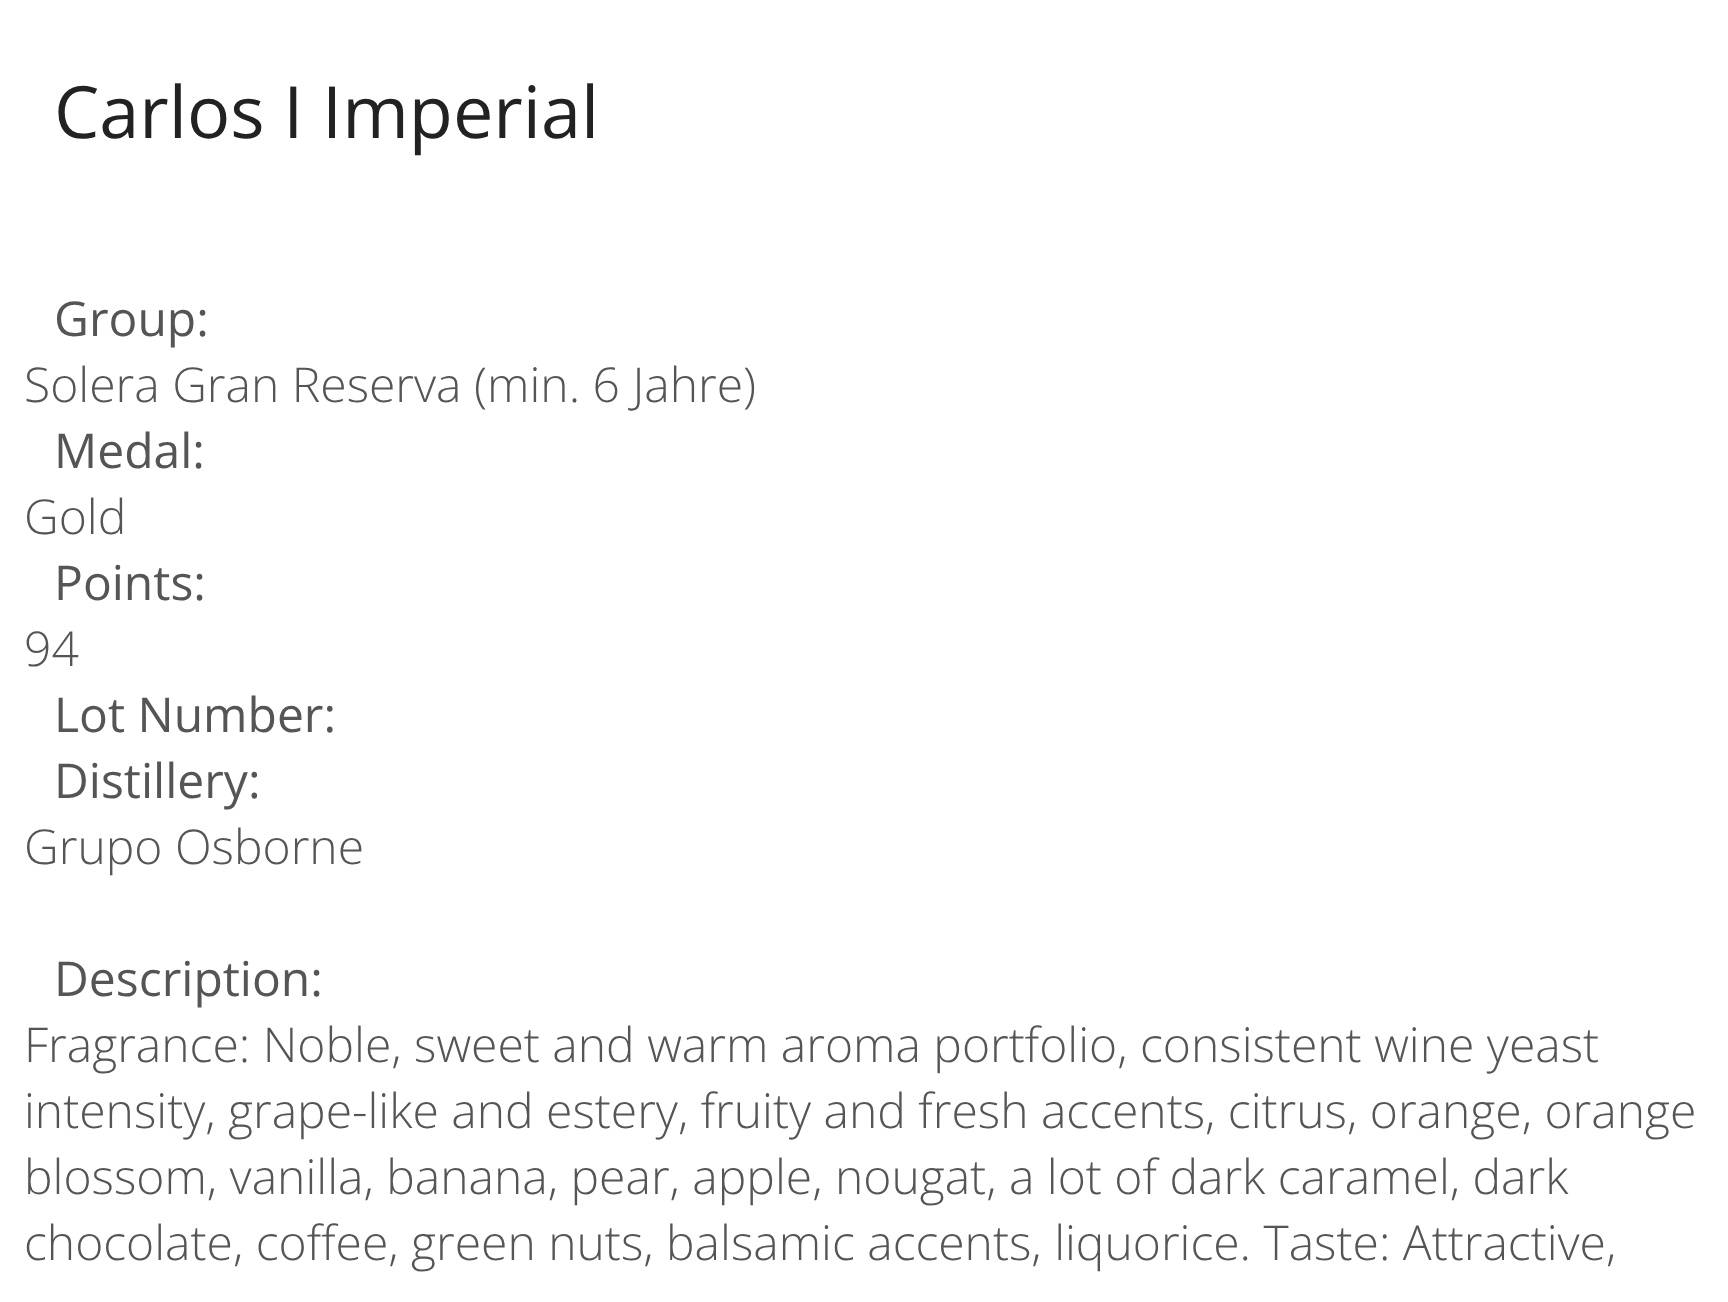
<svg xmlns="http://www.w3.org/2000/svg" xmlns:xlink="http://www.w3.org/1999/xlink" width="1728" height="1302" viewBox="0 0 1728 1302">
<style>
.cls-1{font:72px Open Sans;fill:#222222}
.cls-2{font:48px Open Sans;fill:#555555}
.cls-3{font:300 48px Open Sans;fill:#555555}
</style>
<rect width="100%" height="100%" fill="#ffffff"/>
<text class="cls-1" x="54" y="138">Carlos I Imperial</text>
<text class="cls-2" x="54" y="336">Group:</text>
<text class="cls-3" x="24" y="402">Solera Gran Reserva (min. 6 Jahre)</text>
<text class="cls-2" x="54" y="468">Medal:</text>
<text class="cls-3" x="24" y="534">Gold</text>
<text class="cls-2" x="54" y="600">Points:</text>
<text class="cls-3" x="24" y="666">94</text>
<text class="cls-2"><tspan x="54" y="732">Lot Number:</tspan><tspan x="54" y="798">Distillery:</tspan></text>
<text class="cls-3" x="24" y="864">Grupo Osborne</text>
<text class="cls-2" x="54" y="996">Description:</text>
<text class="cls-3"><tspan x="24" y="1062">Fragrance: Noble, sweet and warm aroma portfolio, consistent wine yeast</tspan><tspan x="24" y="1128">intensity, grape-like and estery, fruity and fresh accents, citrus, orange, orange</tspan><tspan x="24" y="1194">blossom, vanilla, banana, pear, apple, nougat, a lot of dark caramel, dark</tspan><tspan x="24" y="1260">chocolate, coffee, green nuts, balsamic accents, liquorice. Taste: Attractive,</tspan></text>
</svg>
